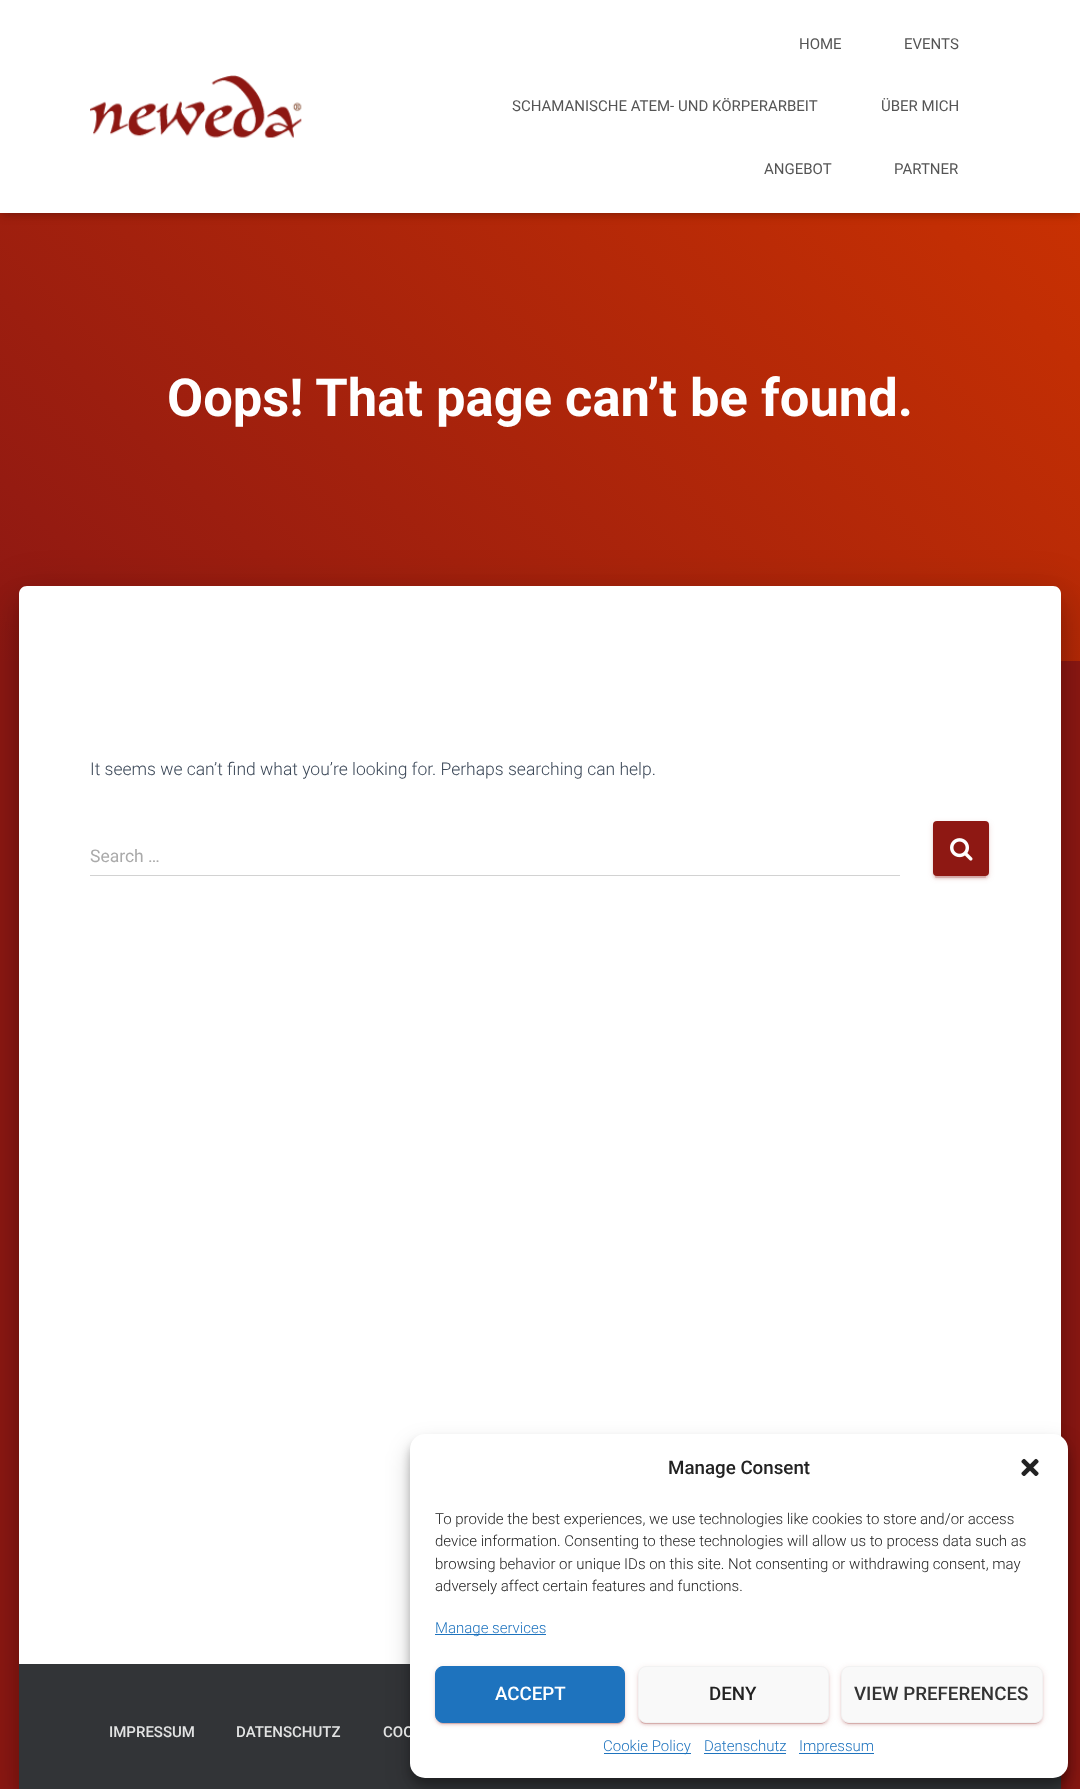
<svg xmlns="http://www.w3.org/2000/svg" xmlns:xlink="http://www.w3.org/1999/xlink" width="1080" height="1789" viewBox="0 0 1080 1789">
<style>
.cls-1{font:15px Roboto;fill:#555555}
.cls-2{font:bold 52.5px Roboto;fill:#ffffff}
.cls-3{font:300 17.5px Roboto;fill:#3c4858}
.cls-4{font:17.5px Roboto;fill:#aaaaaa}
.cls-5{font:500 15px Roboto;fill:#e2e3e3}
.cls-6{font:500 18.75px Roboto;fill:#222222}
.cls-7{font:300 15px Roboto;fill:#222222}
.cls-8{font:300 15px Roboto;fill:#1e73be}
.cls-9{font:500 18.75px Roboto;fill:#ffffff}
.cls-10{font:500 18.75px Roboto;fill:#333333}
</style>
<defs>
<linearGradient id="g1" gradientUnits="userSpaceOnUse" x1="105" y1="766" x2="975" y2="-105"><stop offset="0" stop-color="#8e1813"/><stop offset="1" stop-color="#d03400"/></linearGradient>
</defs>
<rect width="100%" height="100%" fill="#8e1813"/>
<rect fill="url(#g1)" x="0" y="213" width="1080" height="448"/>
<rect fill="#000000" fill-opacity="0.1" filter="blur(3px)" x="3" y="8" width="1075" height="207"/>
<rect fill="#000000" fill-opacity="0.12" filter="blur(6px)" x="0" y="1" width="1080" height="213"/>
<rect fill="#000000" fill-opacity="0.42" filter="blur(6px)" x="8" y="9" width="1065" height="197"/>
<rect fill="#ffffff" x="0" y="0" width="1080" height="213"/>
<image xlink:href="image0.png" x="90" y="75" width="212" height="63"/>
<rect fill="#000000" fill-opacity="0.2" filter="blur(6px)" x="25" y="603" width="1030" height="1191" rx="1"/>
<rect fill="#000000" fill-opacity="0.12" filter="blur(19px)" x="13" y="588" width="1055" height="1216" rx="14"/>
<rect fill="#000000" fill-opacity="0.14" filter="blur(15px)" x="16" y="604" width="1048" height="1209" rx="10"/>
<path fill="#ffffff" d="M27 586H1053C1057.5 586 1061 589.5 1061 594V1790H19V594C19 589.5 22.5 586 27 586Z"/>
<rect fill="#d2d2d2" x="90" y="875" width="810" height="1"/>
<rect fill="#8e1813" fill-opacity="0.12" filter="blur(3px)" x="933" y="823" width="56" height="55" rx="4"/>
<rect fill="#8e1813" fill-opacity="0.2" filter="blur(0.5px)" x="935" y="828" width="51" height="50" rx="1"/>
<rect fill="#8e1813" fill-opacity="0.14" filter="blur(1px)" x="933" y="824" width="56" height="55" rx="4"/>
<rect fill="#8e1813" x="933" y="821" width="56" height="55" rx="4"/>
<image xlink:href="image1.png" x="950" y="838" width="23" height="23"/>
<rect fill="#323437" x="19" y="1664" width="1042" height="125"/>
<rect fill="#000000" fill-opacity="0.23" filter="blur(4px)" x="410" y="1441" width="658" height="344" rx="15"/>
<rect fill="#000000" fill-opacity="0.19" filter="blur(12.5px)" x="410" y="1446" width="658" height="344" rx="15"/>
<text class="cls-1" x="799" y="49">HOME</text>
<text class="cls-1" x="904" y="49">EVENTS</text>
<text class="cls-1" x="512" y="111">SCHAMANISCHE ATEM- UND KÖRPERARBEIT</text>
<text class="cls-1" x="881" y="111">ÜBER MICH</text>
<text class="cls-1" x="764" y="174">ANGEBOT</text>
<text class="cls-1" x="894" y="174">PARTNER</text>
<text class="cls-2" x="167" y="416">Oops! That page can’t be found.</text>
<text class="cls-3" x="90" y="775">It seems we can’t find what you’re looking for. Perhaps searching can help.</text>
<text class="cls-4" x="90" y="862">Search …</text>
<text class="cls-5" x="109" y="1737">IMPRESSUM</text>
<text class="cls-5" x="236" y="1737">DATENSCHUTZ</text>
<text class="cls-5" x="383" y="1737">COO</text>
<rect fill="#ffffff" x="410" y="1434" width="658" height="344" rx="15"/>
<text class="cls-6" x="668" y="1474">Manage Consent</text>
<image xlink:href="image2.png" x="1021" y="1458" width="18" height="18"/>
<text class="cls-7"><tspan x="435" y="1524">To provide the best experiences, we use technologies like cookies to store and/or access</tspan><tspan x="435" y="1546">device information. Consenting to these technologies will allow us to process data such as</tspan><tspan x="435" y="1569">browsing behavior or unique IDs on this site. Not consenting or withdrawing consent, may</tspan><tspan x="435" y="1591">adversely affect certain features and functions.</tspan></text>
<rect fill="#1e73be" x="435" y="1634" width="111" height="1"/>
<text class="cls-8" x="435" y="1633">Manage services</text>
<rect fill="#8e1813" fill-opacity="0.12" filter="blur(3px)" x="435" y="1668" width="190" height="56" rx="8"/>
<rect fill="#8e1813" fill-opacity="0.2" filter="blur(0.5px)" x="438" y="1673" width="185" height="51" rx="5"/>
<rect fill="#8e1813" fill-opacity="0.14" filter="blur(1px)" x="435" y="1669" width="190" height="56" rx="8"/>
<rect fill="#1e73be" stroke="#1e73be" x="435.5" y="1666.5" width="189" height="56" rx="7.5"/>
<text class="cls-9" x="495" y="1700">ACCEPT</text>
<rect fill="#8e1813" fill-opacity="0.12" filter="blur(3px)" x="638" y="1668" width="191" height="56" rx="8"/>
<rect fill="#8e1813" fill-opacity="0.2" filter="blur(0.5px)" x="640" y="1673" width="186" height="51" rx="5"/>
<rect fill="#8e1813" fill-opacity="0.14" filter="blur(1px)" x="638" y="1669" width="191" height="56" rx="8"/>
<rect fill="#f9f9f9" stroke="#f2f2f2" x="638.5" y="1666.5" width="190" height="56" rx="7.5"/>
<text class="cls-6" x="709" y="1700">DENY</text>
<rect fill="#8e1813" fill-opacity="0.12" filter="blur(3px)" x="841" y="1668" width="202" height="56" rx="8"/>
<rect fill="#8e1813" fill-opacity="0.2" filter="blur(0.5px)" x="844" y="1673" width="196" height="51" rx="5"/>
<rect fill="#8e1813" fill-opacity="0.14" filter="blur(1px)" x="841" y="1669" width="202" height="56" rx="8"/>
<rect fill="#f9f9f9" stroke="#f2f2f2" x="841.5" y="1666.5" width="201" height="56" rx="7.5"/>
<text class="cls-10" x="854" y="1700">VIEW PREFERENCES</text>
<rect fill="#1e73be" x="604" y="1753" width="87" height="1"/>
<text class="cls-8" x="603" y="1751">Cookie Policy</text>
<text class="cls-8" x="704" y="1751">Datenschutz</text>
<rect fill="#1e73be" x="704" y="1753" width="82" height="1"/>
<rect fill="#1e73be" x="799" y="1753" width="75" height="1"/>
<text class="cls-8" x="799" y="1751">Impressum</text>
</svg>
